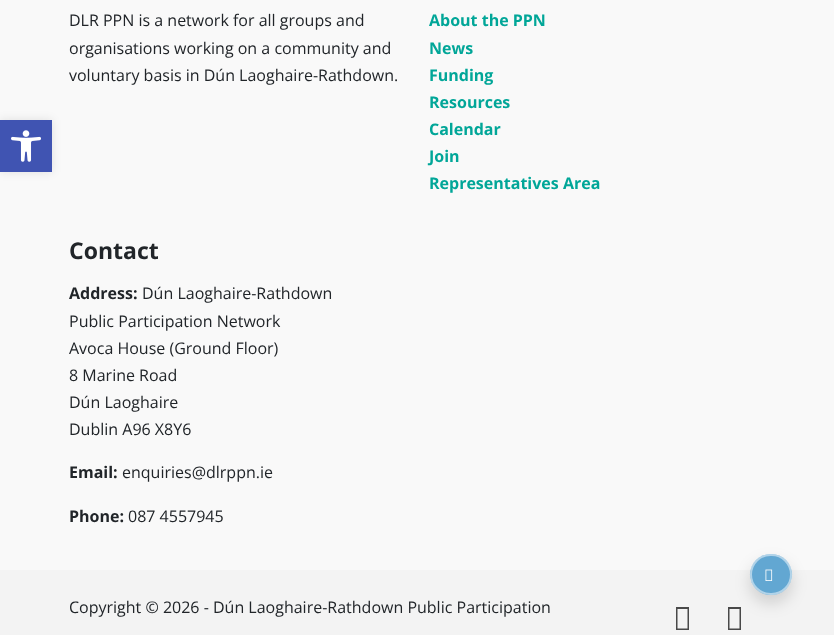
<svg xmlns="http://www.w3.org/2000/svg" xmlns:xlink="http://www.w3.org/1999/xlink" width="834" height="635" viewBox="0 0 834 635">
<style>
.cls-1{font:16px Open Sans;fill:#212529}
.cls-2{font:bold 16px Open Sans;fill:#01a698}
.cls-3{font:bold 23px Open Sans;fill:#212529}
.cls-4{font:bold 16px Open Sans;fill:#212529}
</style>
<rect width="100%" height="100%" fill="#f9f9f9"/>
<rect fill="#000000" fill-opacity="0.1" filter="blur(5px)" x="0" y="120" width="52" height="52"/>
<rect fill="#4054b2" x="0" y="120" width="52" height="52"/>
<image xlink:href="image0.png" x="11" y="130" width="30" height="32"/>
<rect fill="#f3f3f3" x="0" y="570" width="834" height="65"/>
<path fill="#494949" d="M676 630V607H689V630ZM677.5 628.5H687.5V609H677.5Z"/>
<path fill="#494949" d="M728 630V607H741V630ZM729.5 628.5H739.5V609H729.5Z"/>
<rect fill="#000000" fill-opacity="0.15" filter="blur(8px)" x="750" y="562" width="42" height="41" rx="20.5"/>
<rect fill="#62a7d2" x="750" y="554" width="42" height="41" rx="20.5"/>
<rect fill="none" stroke="#ffffff" stroke-opacity="0.5" stroke-width="2" x="751" y="555" width="40" height="39" rx="19.5"/>
<image xlink:href="image1.png" x="765" y="569" width="8" height="12"/>
<text class="cls-1"><tspan x="69" y="26">DLR PPN is a network for all groups and</tspan><tspan x="69" y="54">organisations working on a community and</tspan><tspan x="69" y="81">voluntary basis in Dún Laoghaire-Rathdown.</tspan></text>
<text class="cls-2"><tspan x="429" y="26">About the PPN</tspan><tspan x="429" y="54">News</tspan><tspan x="429" y="81">Funding</tspan><tspan x="429" y="108">Resources</tspan><tspan x="429" y="135">Calendar</tspan><tspan x="429" y="162">Join</tspan><tspan x="429" y="189">Representatives Area</tspan></text>
<text class="cls-3" x="69" y="259">Contact</text>
<text class="cls-4" x="69" y="299">Address:</text>
<text class="cls-1" x="142" y="299">Dún Laoghaire-Rathdown</text>
<text class="cls-1"><tspan x="69" y="327">Public Participation Network</tspan><tspan x="69" y="354">Avoca House (Ground Floor)</tspan><tspan x="69" y="381">8 Marine Road</tspan><tspan x="69" y="408">Dún Laoghaire</tspan><tspan x="69" y="435">Dublin A96 X8Y6</tspan></text>
<text class="cls-4" x="69" y="478">Email:</text>
<text class="cls-1" x="122" y="478">enquiries@dlrppn.ie</text>
<text class="cls-4" x="69" y="522">Phone:</text>
<text class="cls-1" x="128" y="522">087 4557945</text>
<text class="cls-1" x="69" y="613">Copyright © 2026 - Dún Laoghaire-Rathdown Public Participation</text>
</svg>
